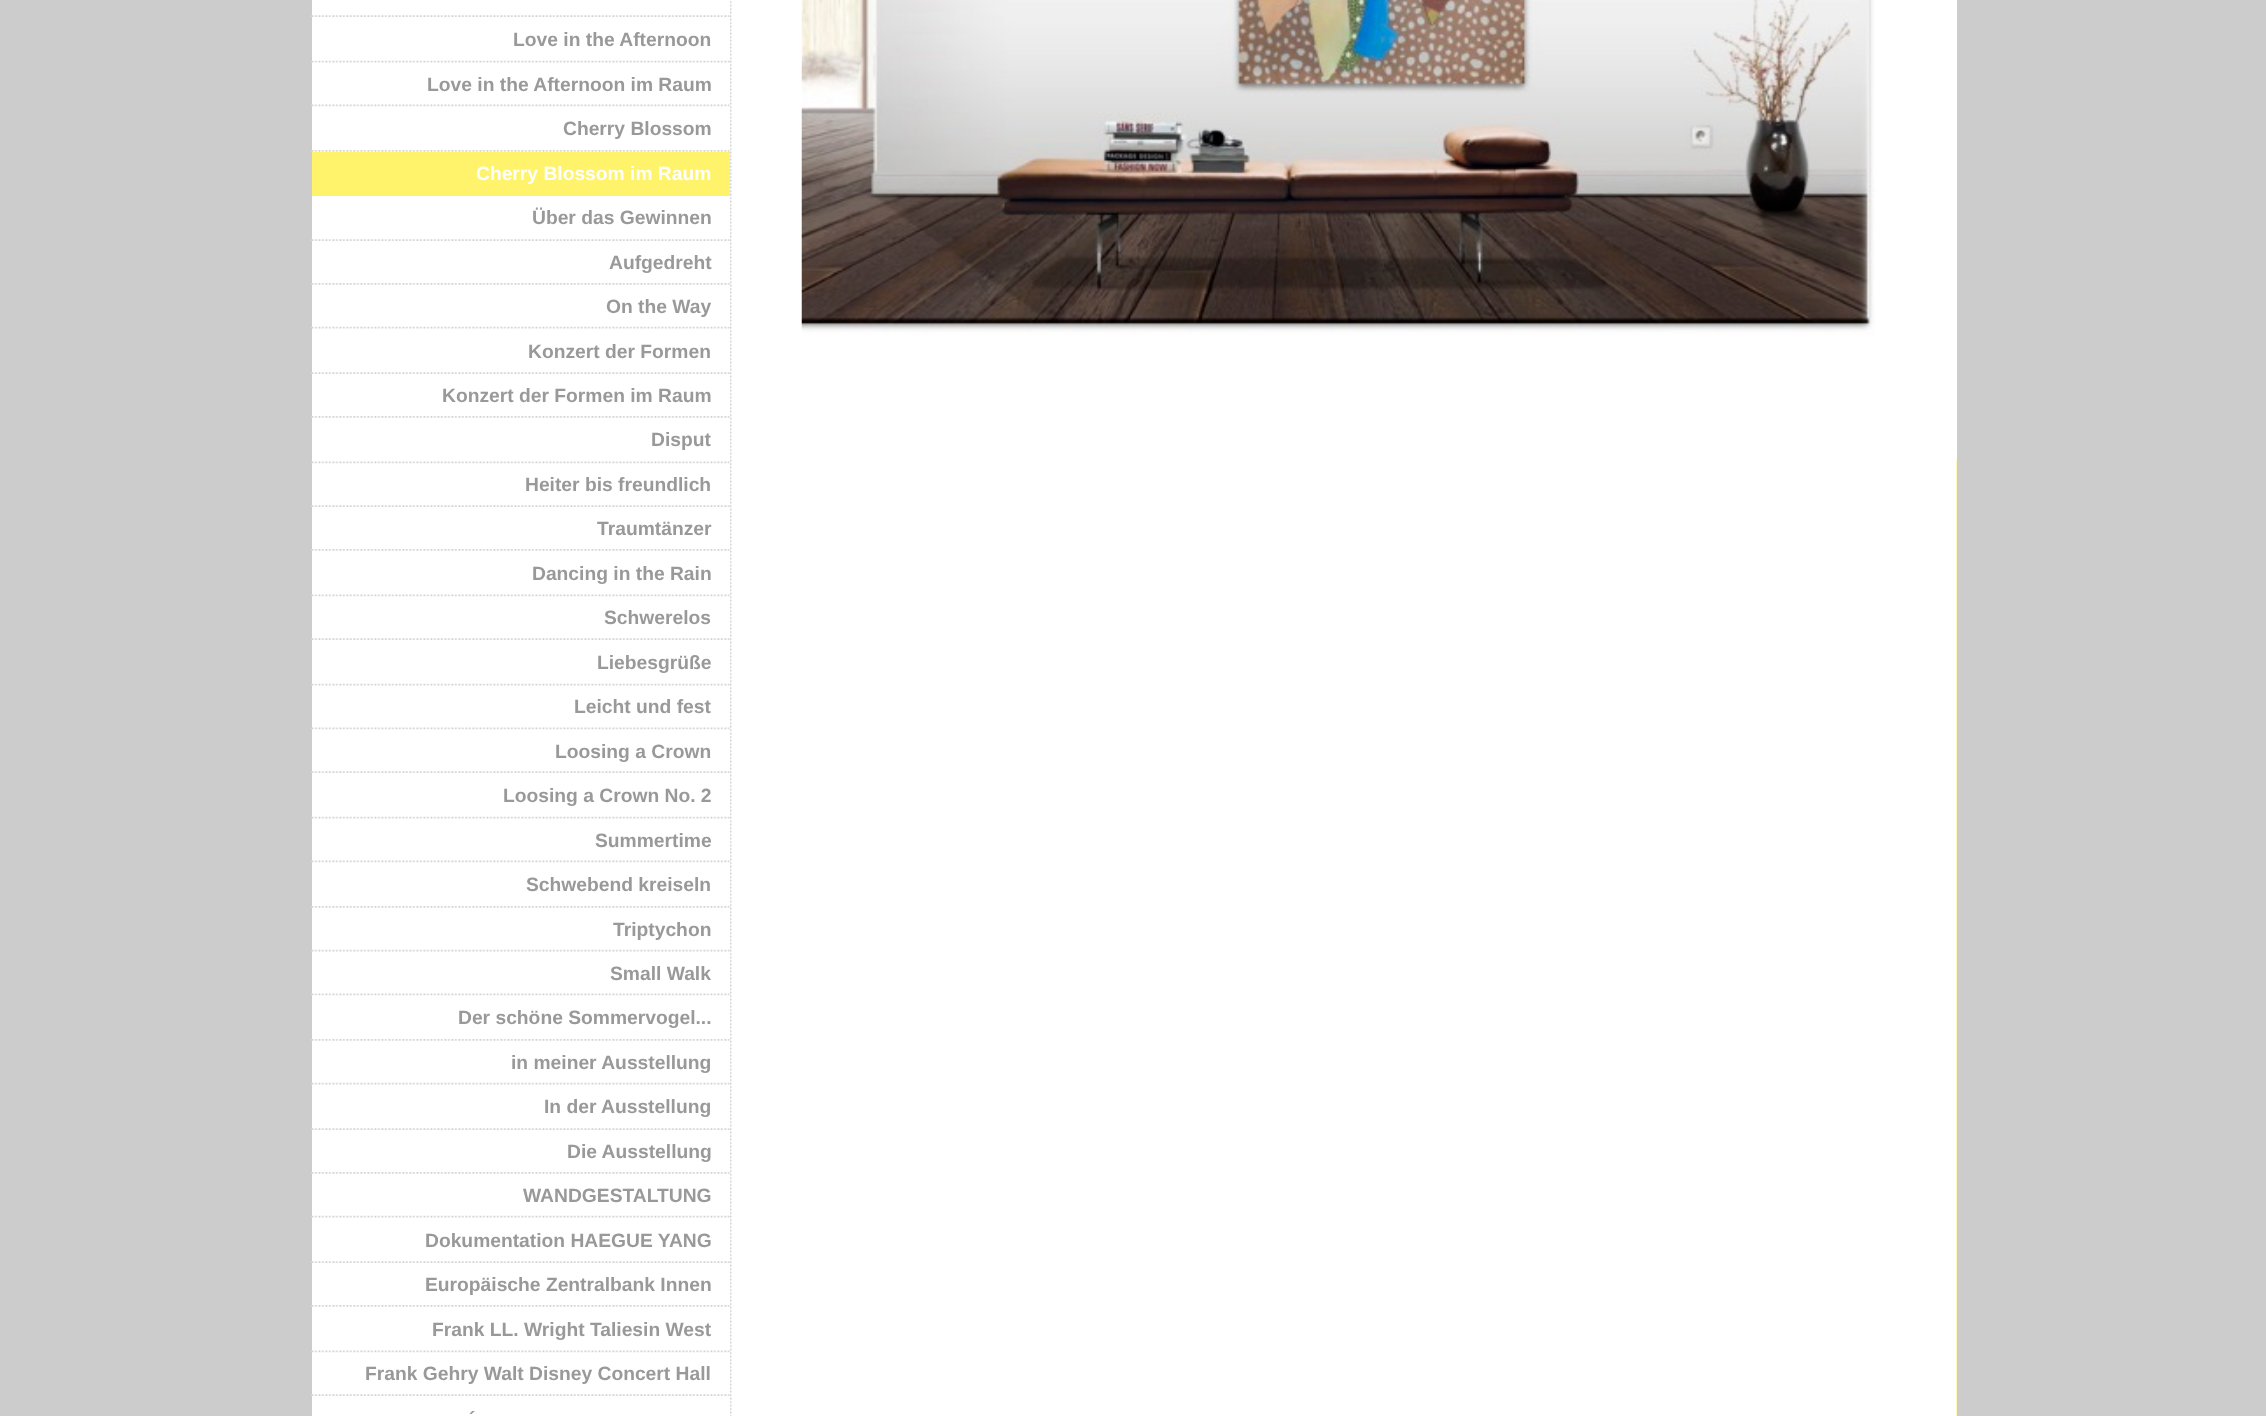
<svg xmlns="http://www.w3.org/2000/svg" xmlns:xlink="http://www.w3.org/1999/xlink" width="2266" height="1416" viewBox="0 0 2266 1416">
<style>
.cls-1{font:bold 19.25px Liberation Sans;fill:#999999}
.cls-2{font:bold 19.25px Liberation Sans;fill:#ffffff}
</style>
<rect width="100%" height="100%" fill="#cccccc"/>
<rect fill="#fff36c" x="312" y="152" width="1645" height="1264"/>
<image xlink:href="image0.png" x="729" y="0" width="1228" height="1416"/>
<rect fill="#ffffff" x="312" y="0" width="418" height="152"/>
<image xlink:href="image1.png" x="311" y="15" width="419" height="2"/>
<image xlink:href="image2.png" x="311" y="60" width="419" height="3"/>
<image xlink:href="image3.png" x="311" y="104" width="419" height="3"/>
<image xlink:href="image4.png" x="311" y="150" width="419" height="2"/>
<rect fill="#ffffff" x="312" y="196" width="418" height="1220"/>
<image xlink:href="image1.png" x="311" y="239" width="419" height="2"/>
<image xlink:href="image4.png" x="311" y="283" width="419" height="2"/>
<image xlink:href="image2.png" x="311" y="326" width="419" height="3"/>
<image xlink:href="image1.png" x="311" y="372" width="419" height="2"/>
<image xlink:href="image4.png" x="311" y="416" width="419" height="2"/>
<image xlink:href="image3.png" x="311" y="461" width="419" height="3"/>
<image xlink:href="image1.png" x="311" y="505" width="419" height="2"/>
<image xlink:href="image4.png" x="311" y="549" width="419" height="2"/>
<image xlink:href="image3.png" x="311" y="594" width="419" height="3"/>
<image xlink:href="image1.png" x="311" y="638" width="419" height="2"/>
<image xlink:href="image2.png" x="311" y="683" width="419" height="3"/>
<image xlink:href="image3.png" x="311" y="727" width="419" height="3"/>
<image xlink:href="image1.png" x="311" y="771" width="419" height="2"/>
<image xlink:href="image2.png" x="311" y="816" width="419" height="3"/>
<image xlink:href="image3.png" x="311" y="860" width="419" height="3"/>
<image xlink:href="image4.png" x="311" y="906" width="419" height="2"/>
<image xlink:href="image2.png" x="311" y="949" width="419" height="3"/>
<image xlink:href="image3.png" x="311" y="993" width="419" height="3"/>
<image xlink:href="image4.png" x="311" y="1039" width="419" height="2"/>
<image xlink:href="image2.png" x="311" y="1082" width="419" height="3"/>
<image xlink:href="image1.png" x="311" y="1128" width="419" height="2"/>
<image xlink:href="image4.png" x="311" y="1172" width="419" height="2"/>
<image xlink:href="image2.png" x="311" y="1215" width="419" height="3"/>
<image xlink:href="image1.png" x="311" y="1261" width="419" height="2"/>
<image xlink:href="image4.png" x="311" y="1305" width="419" height="2"/>
<image xlink:href="image3.png" x="311" y="1350" width="419" height="3"/>
<image xlink:href="image1.png" x="311" y="1394" width="419" height="2"/>
<rect fill="#ffffff" x="1956" y="0" width="1" height="460"/>
<image xlink:href="image5.png" x="801" y="0" width="1074" height="335"/>
<text class="cls-1" x="513" y="46">Love in the Afternoon</text>
<text class="cls-1" x="427" y="91">Love in the Afternoon im Raum</text>
<text class="cls-1" x="563" y="135">Cherry Blossom</text>
<text class="cls-2" x="476" y="180">Cherry Blossom im Raum</text>
<text class="cls-1" x="532" y="224">Über das Gewinnen</text>
<text class="cls-1" x="609" y="269">Aufgedreht</text>
<text class="cls-1" x="606" y="313">On the Way</text>
<text class="cls-1" x="528" y="358">Konzert der Formen</text>
<text class="cls-1" x="442" y="402">Konzert der Formen im Raum</text>
<text class="cls-1" x="651" y="446">Disput</text>
<text class="cls-1" x="525" y="491">Heiter bis freundlich</text>
<text class="cls-1" x="597" y="535">Traumtänzer</text>
<text class="cls-1" x="532" y="580">Dancing in the Rain</text>
<text class="cls-1" x="604" y="624">Schwerelos</text>
<text class="cls-1" x="597" y="669">Liebesgrüße</text>
<text class="cls-1" x="574" y="713">Leicht und fest</text>
<text class="cls-1" x="555" y="758">Loosing a Crown</text>
<text class="cls-1" x="503" y="802">Loosing a Crown No. 2</text>
<text class="cls-1" x="595" y="847">Summertime</text>
<text class="cls-1" x="526" y="891">Schwebend kreiseln</text>
<text class="cls-1" x="613" y="936">Triptychon</text>
<text class="cls-1" x="610" y="980">Small Walk</text>
<text class="cls-1" x="458" y="1024">Der schöne Sommervogel...</text>
<text class="cls-1" x="511" y="1069">in meiner Ausstellung</text>
<text class="cls-1" x="544" y="1113">In der Ausstellung</text>
<text class="cls-1" x="567" y="1158">Die Ausstellung</text>
<text class="cls-1" x="523" y="1202">WANDGESTALTUNG</text>
<text class="cls-1" x="425" y="1247">Dokumentation HAEGUE YANG</text>
<text class="cls-1" x="425" y="1291">Europäische Zentralbank Innen</text>
<text class="cls-1" x="432" y="1336">Frank LL. Wright Taliesin West</text>
<text class="cls-1" x="365" y="1380">Frank Gehry Walt Disney Concert Hall</text>
<text class="cls-1" x="469" y="1425">´</text>
</svg>
